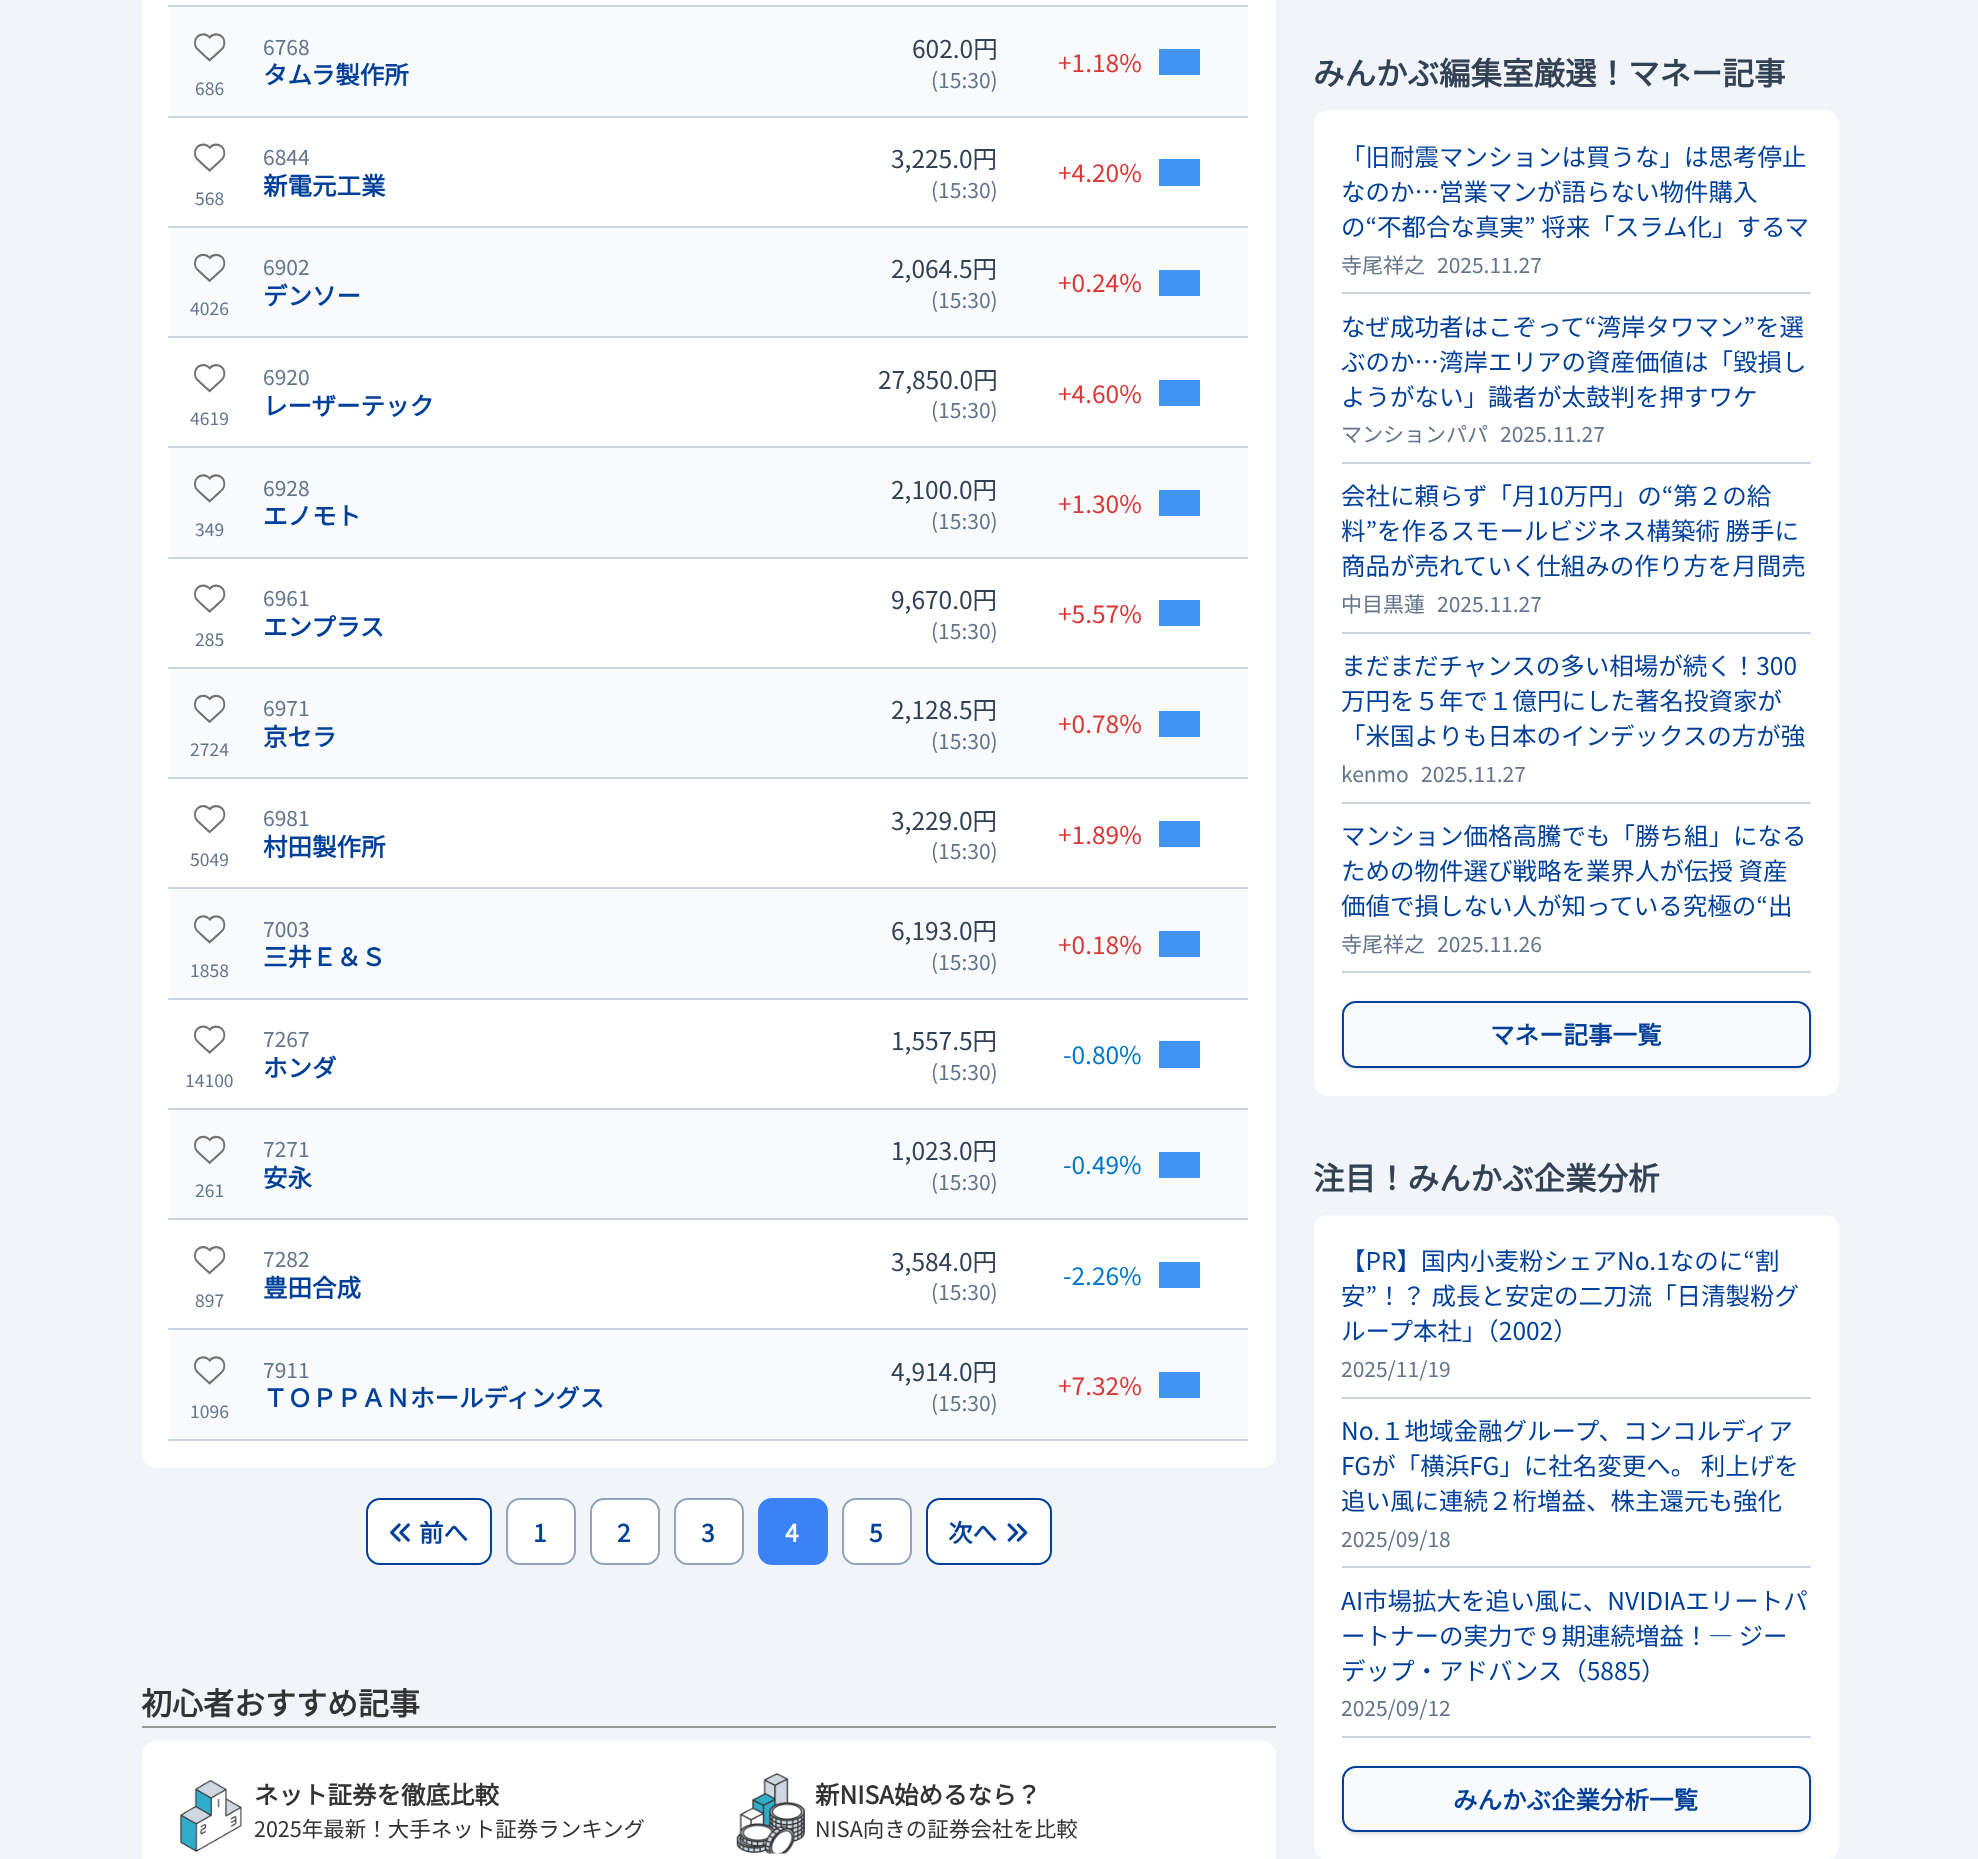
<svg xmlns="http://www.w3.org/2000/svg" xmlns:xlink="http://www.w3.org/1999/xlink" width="1978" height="1859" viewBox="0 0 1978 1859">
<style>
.cls-1{font:21px Noto Sans CJK JP;fill:#64748b}
.cls-2{font:bold 24.5px Noto Sans CJK JP;fill:#014099}
.cls-3{font:24.5px Noto Sans CJK JP;fill:#334155}
.cls-4{font:24.5px Noto Sans CJK JP;fill:#d83835}
.cls-5{font:17.5px Noto Sans CJK JP;fill:#64748b}
.cls-6{font:24.5px Noto Sans CJK JP;fill:#0077c8}
.cls-7{font:bold 24.5px Noto Sans CJK JP;fill:#ffffff}
.cls-8{font:bold 31px Noto Sans CJK JP;fill:#333333}
.cls-9{font:bold 24.5px Noto Sans CJK JP;fill:#333333}
.cls-10{font:21.5px Noto Sans CJK JP;fill:#333333}
.cls-11{font:bold 31.5px Noto Sans CJK JP;fill:#334155}
.cls-12{font:24.5px Noto Sans CJK JP;fill:#014099}
</style>
<rect width="100%" height="100%" fill="#f1f5f9"/>
<rect fill="#ffffff" x="142" y="-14" width="1134" height="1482" rx="14"/>
<rect fill="#cbd5e1" x="168" y="5" width="1080" height="2"/>
<rect fill="#f8fafc" x="170" y="7" width="1078" height="109"/>
<rect fill="#cbd5e1" x="168" y="116" width="1080" height="2"/>
<rect fill="#4294f3" x="1159" y="49" width="41" height="26"/>
<image xlink:href="image0.png" x="194" y="33" width="32" height="29"/>
<rect fill="#cbd5e1" x="168" y="226" width="1080" height="2"/>
<rect fill="#4294f3" x="1159" y="159" width="41" height="27"/>
<image xlink:href="image1.png" x="194" y="143" width="32" height="29"/>
<rect fill="#f8fafc" x="170" y="228" width="1078" height="108"/>
<rect fill="#cbd5e1" x="168" y="336" width="1080" height="2"/>
<rect fill="#4294f3" x="1159" y="270" width="41" height="26"/>
<image xlink:href="image2.png" x="194" y="253" width="32" height="30"/>
<rect fill="#cbd5e1" x="168" y="446" width="1080" height="2"/>
<rect fill="#4294f3" x="1159" y="380" width="41" height="26"/>
<image xlink:href="image3.png" x="194" y="364" width="32" height="29"/>
<rect fill="#f8fafc" x="170" y="448" width="1078" height="109"/>
<rect fill="#cbd5e1" x="168" y="557" width="1080" height="2"/>
<rect fill="#4294f3" x="1159" y="490" width="41" height="26"/>
<image xlink:href="image0.png" x="194" y="474" width="32" height="29"/>
<rect fill="#cbd5e1" x="168" y="667" width="1080" height="2"/>
<rect fill="#4294f3" x="1159" y="600" width="41" height="26"/>
<image xlink:href="image1.png" x="194" y="584" width="32" height="29"/>
<rect fill="#f8fafc" x="170" y="669" width="1078" height="108"/>
<rect fill="#cbd5e1" x="168" y="777" width="1080" height="2"/>
<rect fill="#4294f3" x="1159" y="711" width="41" height="26"/>
<image xlink:href="image2.png" x="194" y="694" width="32" height="30"/>
<rect fill="#cbd5e1" x="168" y="887" width="1080" height="2"/>
<rect fill="#4294f3" x="1159" y="821" width="41" height="26"/>
<image xlink:href="image4.png" x="194" y="805" width="32" height="29"/>
<rect fill="#f8fafc" x="170" y="889" width="1078" height="109"/>
<rect fill="#cbd5e1" x="168" y="998" width="1080" height="2"/>
<rect fill="#4294f3" x="1159" y="931" width="41" height="26"/>
<image xlink:href="image0.png" x="194" y="915" width="32" height="29"/>
<rect fill="#cbd5e1" x="168" y="1108" width="1080" height="2"/>
<rect fill="#4294f3" x="1159" y="1041" width="41" height="27"/>
<image xlink:href="image1.png" x="194" y="1025" width="32" height="29"/>
<rect fill="#f8fafc" x="170" y="1110" width="1078" height="108"/>
<rect fill="#cbd5e1" x="168" y="1218" width="1080" height="2"/>
<rect fill="#4294f3" x="1159" y="1152" width="41" height="26"/>
<image xlink:href="image2.png" x="194" y="1135" width="32" height="30"/>
<rect fill="#cbd5e1" x="168" y="1328" width="1080" height="2"/>
<rect fill="#4294f3" x="1159" y="1262" width="41" height="26"/>
<image xlink:href="image3.png" x="194" y="1246" width="32" height="29"/>
<rect fill="#f8fafc" x="170" y="1330" width="1078" height="109"/>
<rect fill="#cbd5e1" x="168" y="1439" width="1080" height="2"/>
<rect fill="#4294f3" x="1159" y="1372" width="41" height="26"/>
<image xlink:href="image0.png" x="194" y="1356" width="32" height="29"/>
<rect fill="#ffffff" stroke="#014099" stroke-width="2" x="367" y="1499" width="124" height="65" rx="13"/>
<image xlink:href="image5.png" x="390" y="1523" width="20" height="19"/>
<rect fill="#ffffff" stroke="#94a3b8" stroke-width="2" x="507" y="1499" width="68" height="65" rx="13"/>
<rect fill="#ffffff" stroke="#94a3b8" stroke-width="2" x="591" y="1499" width="68" height="65" rx="13"/>
<rect fill="#ffffff" stroke="#94a3b8" stroke-width="2" x="675" y="1499" width="68" height="65" rx="13"/>
<rect fill="#3b82f6" stroke="#3b82f6" stroke-width="2" x="759" y="1499" width="68" height="65" rx="13"/>
<rect fill="#ffffff" stroke="#94a3b8" stroke-width="2" x="843" y="1499" width="68" height="65" rx="13"/>
<rect fill="#ffffff" stroke="#014099" stroke-width="2" x="927" y="1499" width="124" height="65" rx="13"/>
<image xlink:href="image6.png" x="1007" y="1523" width="21" height="19"/>
<rect fill="#999999" x="142" y="1726" width="1134" height="2"/>
<rect fill="#ffffff" x="142" y="1741" width="1134" height="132" rx="14"/>
<image xlink:href="image7.png" x="180" y="1780" width="62" height="72"/>
<image xlink:href="image8.png" x="736" y="1773" width="69" height="81"/>
<rect fill="#ffffff" x="1314" y="110" width="525" height="986" rx="14"/>
<rect fill="#cbd5e1" x="1342" y="292" width="469" height="2"/>
<rect fill="#cbd5e1" x="1342" y="462" width="469" height="2"/>
<rect fill="#cbd5e1" x="1342" y="632" width="469" height="2"/>
<rect fill="#cbd5e1" x="1342" y="802" width="469" height="2"/>
<rect fill="#cbd5e1" x="1342" y="971" width="469" height="2"/>
<rect fill="#000000" fill-opacity="0.1" filter="blur(2px)" x="1344" y="1005" width="466" height="63" rx="12"/>
<rect fill="#000000" fill-opacity="0.1" filter="blur(2.5px)" x="1342" y="1003" width="469" height="66" rx="14"/>
<rect fill="#f8fafc" stroke="#014099" stroke-width="2" x="1343" y="1002" width="467" height="65" rx="13"/>
<rect fill="#ffffff" x="1314" y="1215" width="525" height="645" rx="14"/>
<rect fill="#cbd5e1" x="1342" y="1397" width="469" height="2"/>
<rect fill="#cbd5e1" x="1342" y="1566" width="469" height="2"/>
<rect fill="#cbd5e1" x="1342" y="1736" width="469" height="2"/>
<rect fill="#000000" fill-opacity="0.1" filter="blur(2px)" x="1344" y="1769" width="466" height="63" rx="12"/>
<rect fill="#000000" fill-opacity="0.1" filter="blur(2.5px)" x="1342" y="1768" width="469" height="66" rx="14"/>
<rect fill="#f8fafc" stroke="#014099" stroke-width="2" x="1343" y="1767" width="467" height="64" rx="13"/>
<text class="cls-1" x="263" y="55">6768</text>
<text class="cls-2" x="263" y="84">タムラ製作所</text>
<text class="cls-3" x="912" y="58">602.0円</text>
<text class="cls-1" x="931" y="88">(15:30)</text>
<text class="cls-4" x="1058" y="72">+1.18%</text>
<text class="cls-5" x="195" y="95">686</text>
<text class="cls-1" x="263" y="165">6844</text>
<text class="cls-2" x="263" y="195">新電元工業</text>
<text class="cls-3" x="891" y="168">3,225.0円</text>
<text class="cls-1" x="931" y="198">(15:30)</text>
<text class="cls-4" x="1058" y="182">+4.20%</text>
<text class="cls-5" x="195" y="205">568</text>
<text class="cls-1" x="263" y="275">6902</text>
<text class="cls-2" x="263" y="305">デンソー</text>
<text class="cls-3" x="891" y="278">2,064.5円</text>
<text class="cls-1" x="931" y="308">(15:30)</text>
<text class="cls-4" x="1058" y="292">+0.24%</text>
<text class="cls-5" x="190" y="315">4026</text>
<text class="cls-1" x="263" y="385">6920</text>
<text class="cls-2" x="263" y="415">レーザーテック</text>
<text class="cls-3" x="878" y="389">27,850.0円</text>
<text class="cls-1" x="931" y="418">(15:30)</text>
<text class="cls-4" x="1058" y="403">+4.60%</text>
<text class="cls-5" x="190" y="425">4619</text>
<text class="cls-1" x="263" y="496">6928</text>
<text class="cls-2" x="263" y="525">エノモト</text>
<text class="cls-3" x="891" y="499">2,100.0円</text>
<text class="cls-1" x="931" y="529">(15:30)</text>
<text class="cls-4" x="1058" y="513">+1.30%</text>
<text class="cls-5" x="195" y="536">349</text>
<text class="cls-1" x="263" y="606">6961</text>
<text class="cls-2" x="263" y="636">エンプラス</text>
<text class="cls-3" x="891" y="609">9,670.0円</text>
<text class="cls-1" x="931" y="639">(15:30)</text>
<text class="cls-4" x="1058" y="623">+5.57%</text>
<text class="cls-5" x="195" y="646">285</text>
<text class="cls-1" x="263" y="716">6971</text>
<text class="cls-2" x="263" y="746">京セラ</text>
<text class="cls-3" x="891" y="719">2,128.5円</text>
<text class="cls-1" x="931" y="749">(15:30)</text>
<text class="cls-4" x="1058" y="733">+0.78%</text>
<text class="cls-5" x="190" y="756">2724</text>
<text class="cls-1" x="263" y="826">6981</text>
<text class="cls-2" x="263" y="856">村田製作所</text>
<text class="cls-3" x="891" y="830">3,229.0円</text>
<text class="cls-1" x="931" y="859">(15:30)</text>
<text class="cls-4" x="1058" y="844">+1.89%</text>
<text class="cls-5" x="190" y="866">5049</text>
<text class="cls-1" x="263" y="937">7003</text>
<text class="cls-2" x="263" y="966">三井Ｅ＆Ｓ</text>
<text class="cls-3" x="891" y="940">6,193.0円</text>
<text class="cls-1" x="931" y="970">(15:30)</text>
<text class="cls-4" x="1058" y="954">+0.18%</text>
<text class="cls-5" x="190" y="977">1858</text>
<text class="cls-1" x="263" y="1047">7267</text>
<text class="cls-2" x="263" y="1077">ホンダ</text>
<text class="cls-3" x="891" y="1050">1,557.5円</text>
<text class="cls-1" x="931" y="1080">(15:30)</text>
<text class="cls-6" x="1063" y="1064">-0.80%</text>
<text class="cls-5" x="185" y="1087">14100</text>
<text class="cls-1" x="263" y="1157">7271</text>
<text class="cls-2" x="263" y="1187">安永</text>
<text class="cls-3" x="891" y="1160">1,023.0円</text>
<text class="cls-1" x="931" y="1190">(15:30)</text>
<text class="cls-6" x="1063" y="1174">-0.49%</text>
<text class="cls-5" x="195" y="1197">261</text>
<text class="cls-1" x="263" y="1267">7282</text>
<text class="cls-2" x="263" y="1297">豊田合成</text>
<text class="cls-3" x="891" y="1271">3,584.0円</text>
<text class="cls-1" x="931" y="1300">(15:30)</text>
<text class="cls-6" x="1063" y="1285">-2.26%</text>
<text class="cls-5" x="195" y="1307">897</text>
<text class="cls-1" x="263" y="1378">7911</text>
<text class="cls-2" x="263" y="1407">ＴＯＰＰＡＮホールディングス</text>
<text class="cls-3" x="891" y="1381">4,914.0円</text>
<text class="cls-1" x="931" y="1411">(15:30)</text>
<text class="cls-4" x="1058" y="1395">+7.32%</text>
<text class="cls-5" x="190" y="1418">1096</text>
<text class="cls-2" x="419" y="1542">前へ</text>
<text class="cls-2" x="533" y="1542">1</text>
<text class="cls-2" x="617" y="1542">2</text>
<text class="cls-2" x="701" y="1542">3</text>
<text class="cls-7" x="785" y="1542">4</text>
<text class="cls-2" x="869" y="1542">5</text>
<text class="cls-2" x="948" y="1542">次へ</text>
<text class="cls-8" x="141" y="1715">初心者おすすめ記事</text>
<text class="cls-9" x="254" y="1804">ネット証券を徹底比較</text>
<text class="cls-10" x="254" y="1837">2025年最新！大手ネット証券ランキング</text>
<text class="cls-9" x="815" y="1804">新NISA始めるなら？</text>
<text class="cls-10" x="815" y="1837">NISA向きの証券会社を比較</text>
<text class="cls-11" x="1313" y="85">みんかぶ編集室厳選！マネー記事</text>
<text class="cls-12"><tspan x="1341" y="166">「旧耐震マンションは買うな」は思考停止</tspan><tspan x="1341" y="201">なのか…営業マンが語らない物件購入</tspan><tspan x="1341" y="236">の“不都合な真実” 将来「スラム化」するマ</tspan></text>
<text class="cls-1" x="1341" y="273">寺尾祥之</text>
<text class="cls-1" x="1437" y="273">2025.11.27</text>
<text class="cls-12"><tspan x="1341" y="336">なぜ成功者はこぞって“湾岸タワマン”を選</tspan><tspan x="1341" y="371">ぶのか…湾岸エリアの資産価値は「毀損し</tspan><tspan x="1341" y="406">ようがない」識者が太鼓判を押すワケ</tspan></text>
<text class="cls-1" x="1341" y="442">マンションパパ</text>
<text class="cls-1" x="1500" y="442">2025.11.27</text>
<text class="cls-12"><tspan x="1341" y="505">会社に頼らず「月10万円」の“第２の給</tspan><tspan x="1341" y="540">料”を作るスモールビジネス構築術 勝手に</tspan><tspan x="1341" y="575">商品が売れていく仕組みの作り方を月間売</tspan></text>
<text class="cls-1" x="1341" y="612">中目黒蓮</text>
<text class="cls-1" x="1437" y="612">2025.11.27</text>
<text class="cls-12"><tspan x="1341" y="675">まだまだチャンスの多い相場が続く！300</tspan><tspan x="1341" y="710">万円を５年で１億円にした著名投資家が</tspan><tspan x="1341" y="745">「米国よりも日本のインデックスの方が強</tspan></text>
<text class="cls-1" x="1341" y="782">kenmo</text>
<text class="cls-1" x="1421" y="782">2025.11.27</text>
<text class="cls-12"><tspan x="1341" y="845">マンション価格高騰でも「勝ち組」になる</tspan><tspan x="1341" y="880">ための物件選び戦略を業界人が伝授 資産</tspan><tspan x="1341" y="915">価値で損しない人が知っている究極の“出</tspan></text>
<text class="cls-1" x="1341" y="952">寺尾祥之</text>
<text class="cls-1" x="1437" y="952">2025.11.26</text>
<text class="cls-2" x="1490" y="1044">マネー記事一覧</text>
<text class="cls-11" x="1313" y="1190">注目！みんかぶ企業分析</text>
<text class="cls-12"><tspan x="1341" y="1270">【PR】国内小麦粉シェアNo.1なのに“割</tspan><tspan x="1341" y="1305">安”！？ 成長と安定の二刀流「日清製粉グ</tspan><tspan x="1341" y="1340">ループ本社」（2002）</tspan></text>
<text class="cls-1" x="1341" y="1377">2025/11/19</text>
<text class="cls-12"><tspan x="1341" y="1440">No.１地域金融グループ、コンコルディア</tspan><tspan x="1341" y="1475">FGが「横浜FG」に社名変更へ。 利上げを</tspan><tspan x="1341" y="1510">追い風に連続２桁増益、株主還元も強化</tspan></text>
<text class="cls-1" x="1341" y="1547">2025/09/18</text>
<text class="cls-12"><tspan x="1341" y="1610">AI市場拡大を追い風に、NVIDIAエリートパ</tspan><tspan x="1341" y="1645">ートナーの実力で９期連続増益！― ジー</tspan><tspan x="1341" y="1680">デップ・アドバンス（5885）</tspan></text>
<text class="cls-1" x="1341" y="1716">2025/09/12</text>
<text class="cls-2" x="1453" y="1809">みんかぶ企業分析一覧</text>
</svg>
